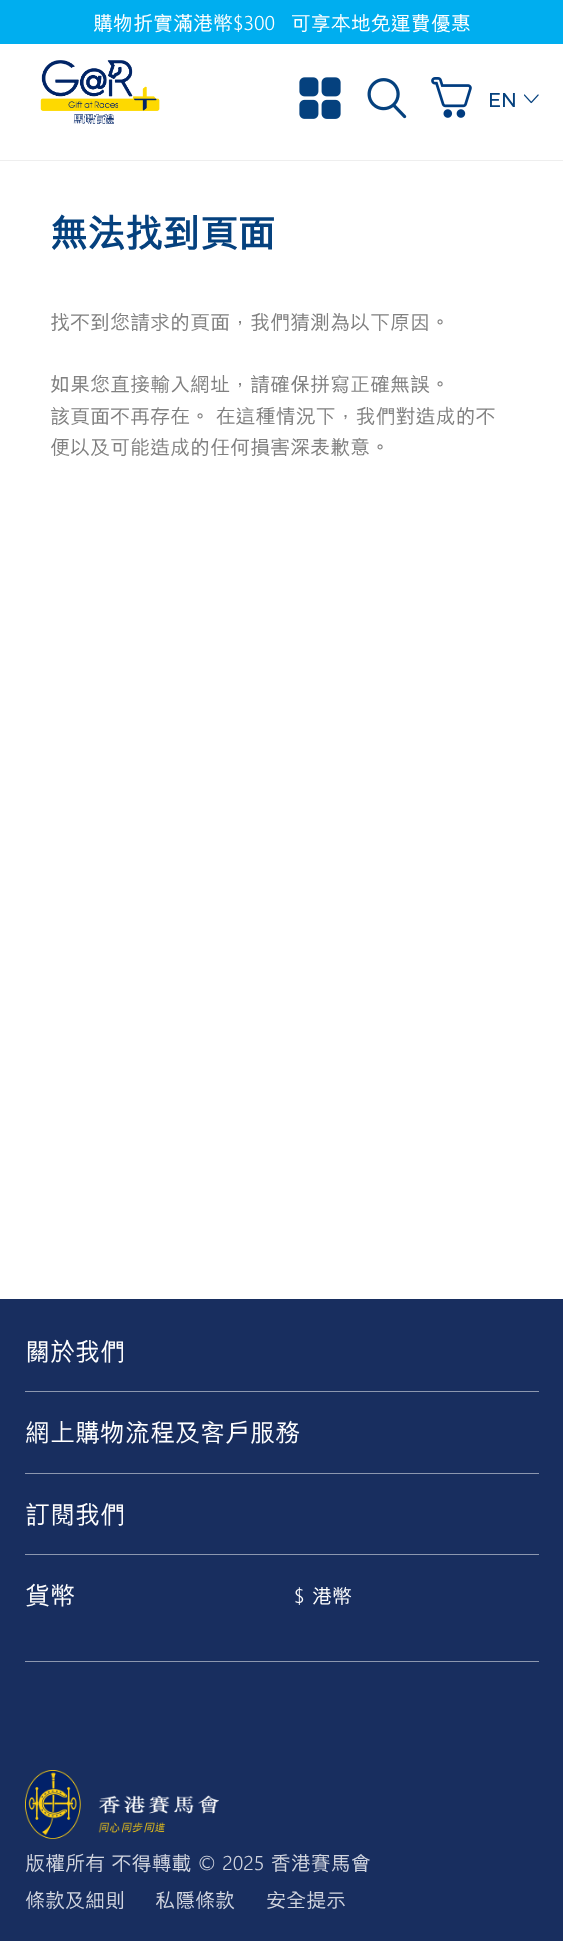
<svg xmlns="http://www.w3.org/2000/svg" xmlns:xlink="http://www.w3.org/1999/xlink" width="563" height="1942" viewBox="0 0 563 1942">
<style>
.cls-1{font:300 20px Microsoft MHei;fill:#ffffff}
.cls-2{font:20px Montserrat;fill:#05417e}
.cls-3{font:bold 37.5px Microsoft MHei;fill:#05417e}
.cls-4{font:300 20px Microsoft MHei;fill:#808080}
.cls-5{font:300 25px Microsoft MHei;fill:#ffffff}
.cls-6{font:300 20px Microsoft MHei;fill:#d1d5df}
</style>
<rect width="100%" height="100%" fill="#ffffff"/>
<rect fill="#00aeef" x="0" y="0" width="563" height="44"/>
<image xlink:href="image0.png" x="40" y="60" width="120" height="64"/>
<image xlink:href="image1.png" x="299" y="77" width="42" height="42"/>
<image xlink:href="image2.png" x="367" y="78" width="40" height="41"/>
<image xlink:href="image3.png" x="431" y="77" width="41" height="41"/>
<image xlink:href="image4.png" x="524" y="94" width="15" height="10"/>
<rect fill="#eeeeee" x="0" y="160" width="563" height="1"/>
<rect fill="#182e5f" x="0" y="1299" width="563" height="642"/>
<rect fill="#8c97af" x="25" y="1391" width="514" height="1"/>
<rect fill="#8c97af" x="25" y="1473" width="514" height="1"/>
<rect fill="#8c97af" x="25" y="1554" width="514" height="1"/>
<rect fill="#8c97af" x="25" y="1661" width="514" height="1"/>
<image xlink:href="image5.png" x="25" y="1770" width="194" height="69"/>
<text class="cls-1" x="93" y="30" word-spacing="10">購物折實滿港幣$300 可享本地免運費優惠</text>
<text class="cls-2" x="488" y="107">EN</text>
<text class="cls-3" x="50" y="246">無法找到頁面</text>
<text class="cls-4" x="50" y="329">找不到您請求的頁面，我們猜測為以下原因。</text>
<text class="cls-4"><tspan x="50" y="391">如果您直接輸入網址，請確保拼寫正確無誤。</tspan><tspan x="50" y="423">該頁面不再存在。 在這種情況下，我們對造成的不</tspan><tspan x="50" y="454">便以及可能造成的任何損害深表歉意。</tspan></text>
<text class="cls-5" x="25" y="1360">關於我們</text>
<text class="cls-5" x="25" y="1441">網上購物流程及客戶服務</text>
<text class="cls-5" x="25" y="1523">訂閱我們</text>
<text class="cls-5" x="25" y="1604">貨幣</text>
<text class="cls-1" x="294" y="1603" word-spacing="2">$ 港幣</text>
<text class="cls-6"><tspan x="25" y="1870" word-spacing="1">版權所有 不得轉載 © 2025 香港賽馬會</tspan><tspan x="25" y="1907">條款及細則</tspan></text>
<text class="cls-6" x="155" y="1907">私隱條款</text>
<text class="cls-6" x="266" y="1907">安全提示</text>
</svg>
